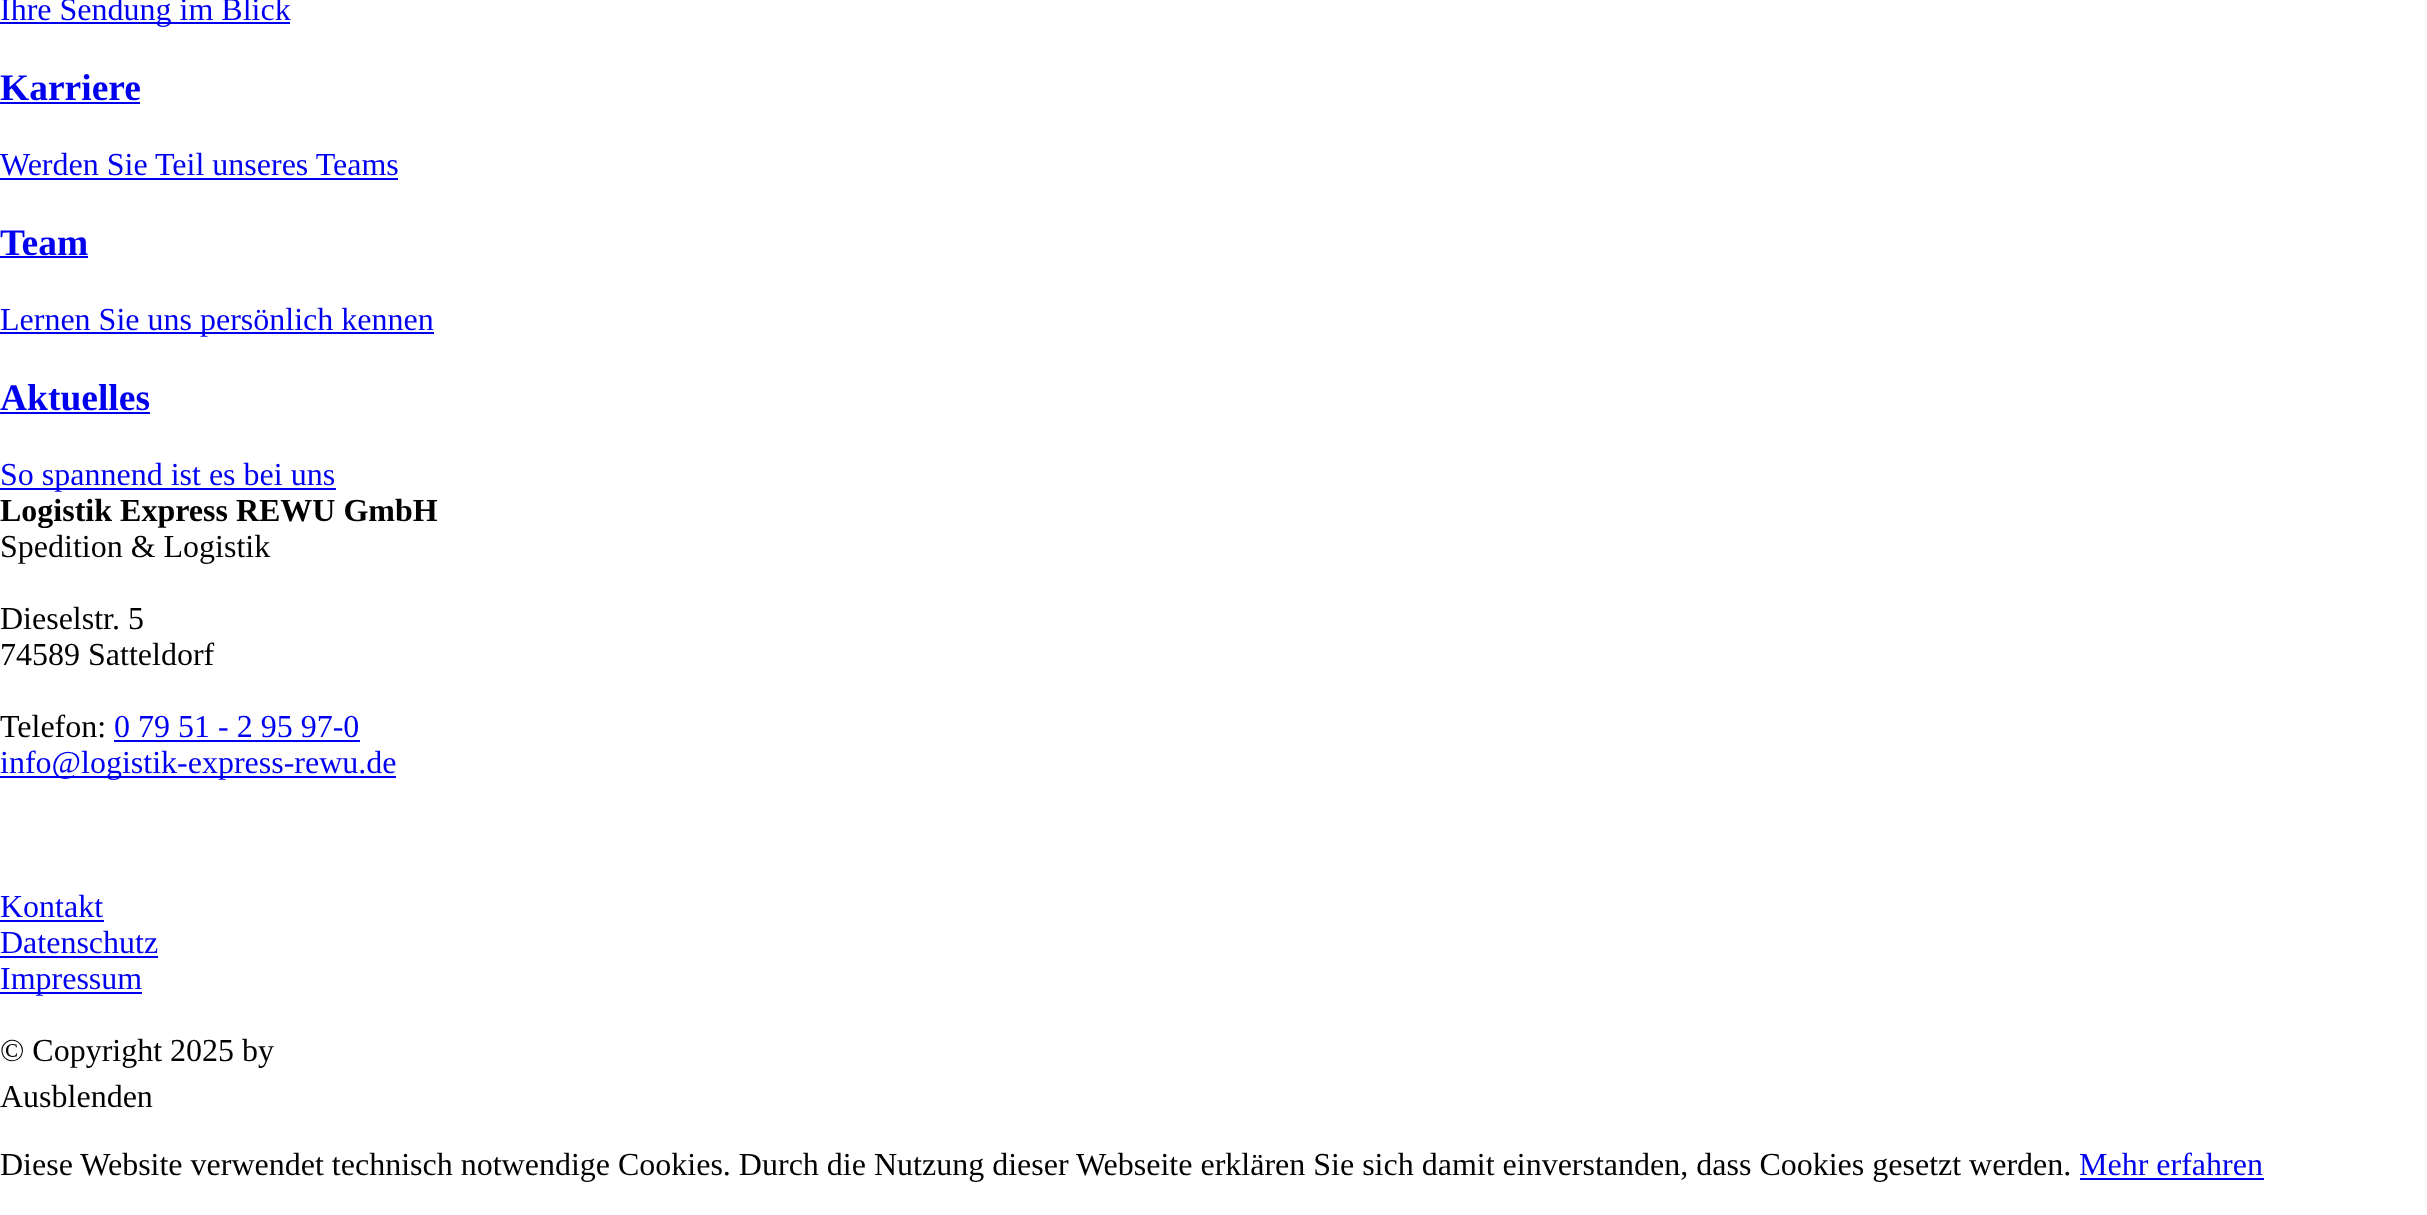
<svg xmlns="http://www.w3.org/2000/svg" xmlns:xlink="http://www.w3.org/1999/xlink" width="2427" height="1215" viewBox="0 0 2427 1215">
<style>
.cls-1{font:32px Liberation Serif;fill:#0000ee}
.cls-2{font:bold 37.5px Liberation Serif;fill:#0000ee}
.cls-3{font:bold 32px Liberation Serif;fill:#000000}
.cls-4{font:32px Liberation Serif;fill:#000000}
</style>
<rect width="100%" height="100%" fill="#ffffff"/>
<rect fill="#0000ee" x="0" y="22" width="290" height="2"/>
<rect fill="#0000ee" x="0" y="102" width="140" height="2"/>
<rect fill="#0000ee" x="0" y="178" width="398" height="2"/>
<rect fill="#0000ee" x="0" y="256" width="88" height="2"/>
<rect fill="#0000ee" x="0" y="332" width="434" height="2"/>
<rect fill="#0000ee" x="0" y="412" width="150" height="2"/>
<rect fill="#0000ee" x="0" y="488" width="336" height="2"/>
<rect fill="#0000ee" x="114" y="740" width="246" height="2"/>
<rect fill="#0000ee" x="0" y="776" width="396" height="2"/>
<rect fill="#0000ee" x="0" y="920" width="104" height="2"/>
<rect fill="#0000ee" x="0" y="956" width="158" height="2"/>
<rect fill="#0000ee" x="0" y="992" width="142" height="2"/>
<rect fill="#0000ee" x="2080" y="1178" width="184" height="2"/>
<text class="cls-1" x="0" y="20">Ihre Sendung im Blick</text>
<text class="cls-2" x="0" y="100">Karriere</text>
<text class="cls-1" x="0" y="175">Werden Sie Teil unseres Teams</text>
<text class="cls-2" x="0" y="255">Team</text>
<text class="cls-1" x="0" y="330">Lernen Sie uns persönlich kennen</text>
<text class="cls-2" x="0" y="410">Aktuelles</text>
<text class="cls-1" x="0" y="485">So spannend ist es bei uns</text>
<text class="cls-3" x="0" y="521">Logistik Express REWU GmbH</text>
<text class="cls-4" x="0" y="557">Spedition &amp; Logistik</text>
<text class="cls-4"><tspan x="0" y="629">Dieselstr. 5</tspan><tspan x="0" y="665">74589 Satteldorf</tspan></text>
<text class="cls-4" x="0" y="737">Telefon:</text>
<text class="cls-1" x="114" y="737">0 79 51 - 2 95 97-0</text>
<text class="cls-1" x="0" y="773">info@logistik-express-rewu.de</text>
<text class="cls-1"><tspan x="0" y="917">Kontakt</tspan><tspan x="0" y="953">Datenschutz</tspan><tspan x="0" y="989">Impressum</tspan></text>
<text class="cls-4"><tspan x="0" y="1061">© Copyright 2025 by</tspan><tspan x="0" y="1107">Ausblenden</tspan></text>
<text class="cls-4" x="0" y="1175">Diese Website verwendet technisch notwendige Cookies. Durch die Nutzung dieser Webseite erklären Sie sich damit einverstanden, dass Cookies gesetzt werden.</text>
<text class="cls-1" x="2079" y="1175">Mehr erfahren</text>
</svg>
